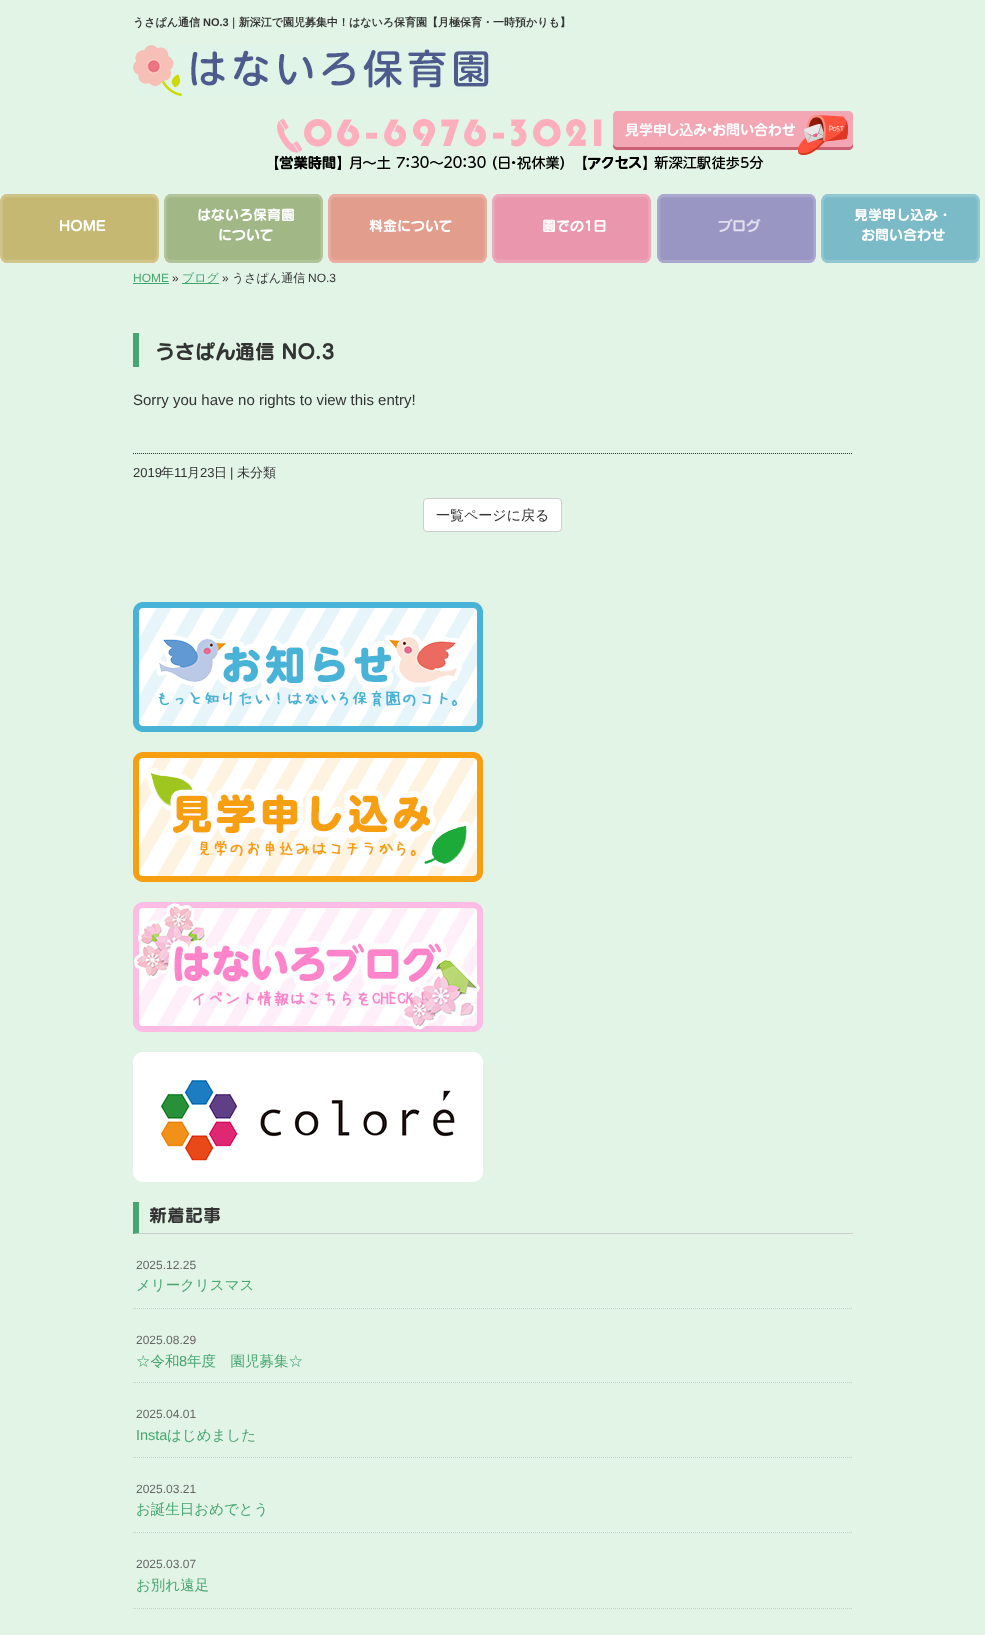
<svg xmlns="http://www.w3.org/2000/svg" xmlns:xlink="http://www.w3.org/1999/xlink" width="985" height="1635" viewBox="0 0 985 1635">
<style>
.cls-1{font:bold 11px WenQuanYi Zen Hei;fill:#333333}
.cls-2{font:bold 11px Liberation Sans;fill:#333333}
.cls-3{font:bold 14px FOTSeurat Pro;fill:#ffffff}
.cls-4{font:bold 14px FOTSeurat Pro;fill:#e0e0ed}
.cls-5{font:12px Liberation Sans;fill:#46a671}
.cls-6{font:12px Liberation Sans;fill:#333333}
.cls-7{font:500 12px WenQuanYi Zen Hei;fill:#46a671}
.cls-8{font:500 12px WenQuanYi Zen Hei;fill:#333333}
.cls-9{font:bold 20px FOTSeurat Pro;fill:#333333}
.cls-10{font:15px Liberation Sans;fill:#333333}
.cls-11{font:13px Liberation Sans;fill:#333333}
.cls-12{font:500 13px WenQuanYi Zen Hei;fill:#333333}
.cls-13{font:500 14px WenQuanYi Zen Hei;fill:#333333}
.cls-14{font:bold 18px FOTSeurat Pro;fill:#333333}
.cls-15{font:12px Liberation Sans;fill:#666666}
.cls-16{font:500 14.5px WenQuanYi Zen Hei;fill:#46a671}
.cls-17{font:14.5px Liberation Sans;fill:#46a671}
</style>
<rect width="100%" height="100%" fill="#e2f4e6"/>
<image xlink:href="image0.png" x="133" y="45" width="359" height="51"/>
<image xlink:href="image1.png" x="275" y="111" width="578" height="59"/>
<image xlink:href="image2.png" x="0" y="194" width="159" height="69"/>
<image xlink:href="image3.png" x="164" y="194" width="159" height="69"/>
<image xlink:href="image4.png" x="328" y="194" width="159" height="69"/>
<image xlink:href="image5.png" x="492" y="194" width="159" height="69"/>
<image xlink:href="image6.png" x="657" y="194" width="159" height="69"/>
<image xlink:href="image7.png" x="821" y="194" width="159" height="69"/>
<rect fill="#46a671" x="133" y="283" width="36" height="1"/>
<rect fill="#46a671" x="182" y="283" width="37" height="1"/>
<rect fill="#46a671" x="133" y="333" width="6" height="34"/>
<path fill="none" stroke="#333333" stroke-dasharray="1 1" d="M133 453.5H853"/>
<rect fill="#ffffff" stroke="#cccccc" x="423.5" y="498.5" width="138" height="33" rx="3.5"/>
<image xlink:href="image8.png" x="133" y="602" width="350" height="130"/>
<image xlink:href="image9.png" x="133" y="752" width="350" height="130"/>
<image xlink:href="image10.png" x="133" y="902" width="350" height="130"/>
<image xlink:href="image11.png" x="133" y="1052" width="350" height="130"/>
<path fill="#cccccc" d="M853 1234H133L139 1233H853Z"/>
<path fill="#46a671" d="M133 1234V1202H139V1233Z"/>
<path fill="none" stroke="#cccccc" stroke-dasharray="1 1" d="M133 1308.5H853"/>
<path fill="none" stroke="#cccccc" stroke-dasharray="1 1" d="M133 1382.5H853"/>
<path fill="none" stroke="#cccccc" stroke-dasharray="1 1" d="M133 1457.5H853"/>
<path fill="none" stroke="#cccccc" stroke-dasharray="1 1" d="M133 1532.5H853"/>
<path fill="none" stroke="#cccccc" stroke-dasharray="1 1" d="M133 1608.5H853"/>
<text class="cls-1" x="133" y="26">うさぱん通信</text>
<text class="cls-2" x="203" y="26">NO.3</text>
<text class="cls-1" x="228" y="26">｜新深江で園児募集中！はないろ保育園【月極保育・一時預かりも】</text>
<text class="cls-3" x="59" y="231">HOME</text>
<text class="cls-3" x="197" y="220">はないろ保育園</text>
<text class="cls-3" x="218" y="240">について</text>
<text class="cls-3" x="369" y="231">料金について</text>
<text class="cls-3" x="542" y="231">園での1日</text>
<text class="cls-4" x="718" y="231">ブログ</text>
<text class="cls-3" x="854" y="220">見学申し込み・</text>
<text class="cls-3" x="861" y="240">お問い合わせ</text>
<text class="cls-5" x="133" y="282">HOME</text>
<text class="cls-6" x="172" y="282">»</text>
<text class="cls-7" x="182" y="282">ブログ</text>
<text class="cls-6" x="222" y="282">»</text>
<text class="cls-8" x="232" y="282">うさぱん通信</text>
<text class="cls-6" x="308" y="282">NO.3</text>
<text class="cls-9" x="155" y="359">うさぱん通信 NO.3</text>
<text class="cls-10" x="133" y="405">Sorry you have no rights to view this entry!</text>
<text class="cls-11" x="133" y="477">2019</text>
<text class="cls-12" x="161" y="477">年</text>
<text class="cls-11" x="174" y="477">11</text>
<text class="cls-12" x="187" y="477">月</text>
<text class="cls-11" x="200" y="477">23</text>
<text class="cls-12" x="214" y="477">日</text>
<text class="cls-11" x="230" y="477">|</text>
<text class="cls-12" x="237" y="477">未分類</text>
<text class="cls-13" x="436" y="520">一覧ページに戻る</text>
<text class="cls-14" x="149" y="1222">新着記事</text>
<text class="cls-15" x="136" y="1269">2025.12.25</text>
<text class="cls-16" x="136" y="1290">メリークリスマス</text>
<text class="cls-15" x="136" y="1344">2025.08.29</text>
<text class="cls-16" x="136" y="1366">☆令和</text>
<text class="cls-17" x="179" y="1366">8</text>
<text class="cls-16" x="187" y="1366">年度　園児募集☆</text>
<text class="cls-15" x="136" y="1418">2025.04.01</text>
<text class="cls-17" x="136" y="1440">Insta</text>
<text class="cls-16" x="167" y="1440">はじめました</text>
<text class="cls-15" x="136" y="1493">2025.03.21</text>
<text class="cls-16" x="136" y="1514">お誕生日おめでとう</text>
<text class="cls-15" x="136" y="1568">2025.03.07</text>
<text class="cls-16" x="136" y="1590">お別れ遠足</text>
</svg>
